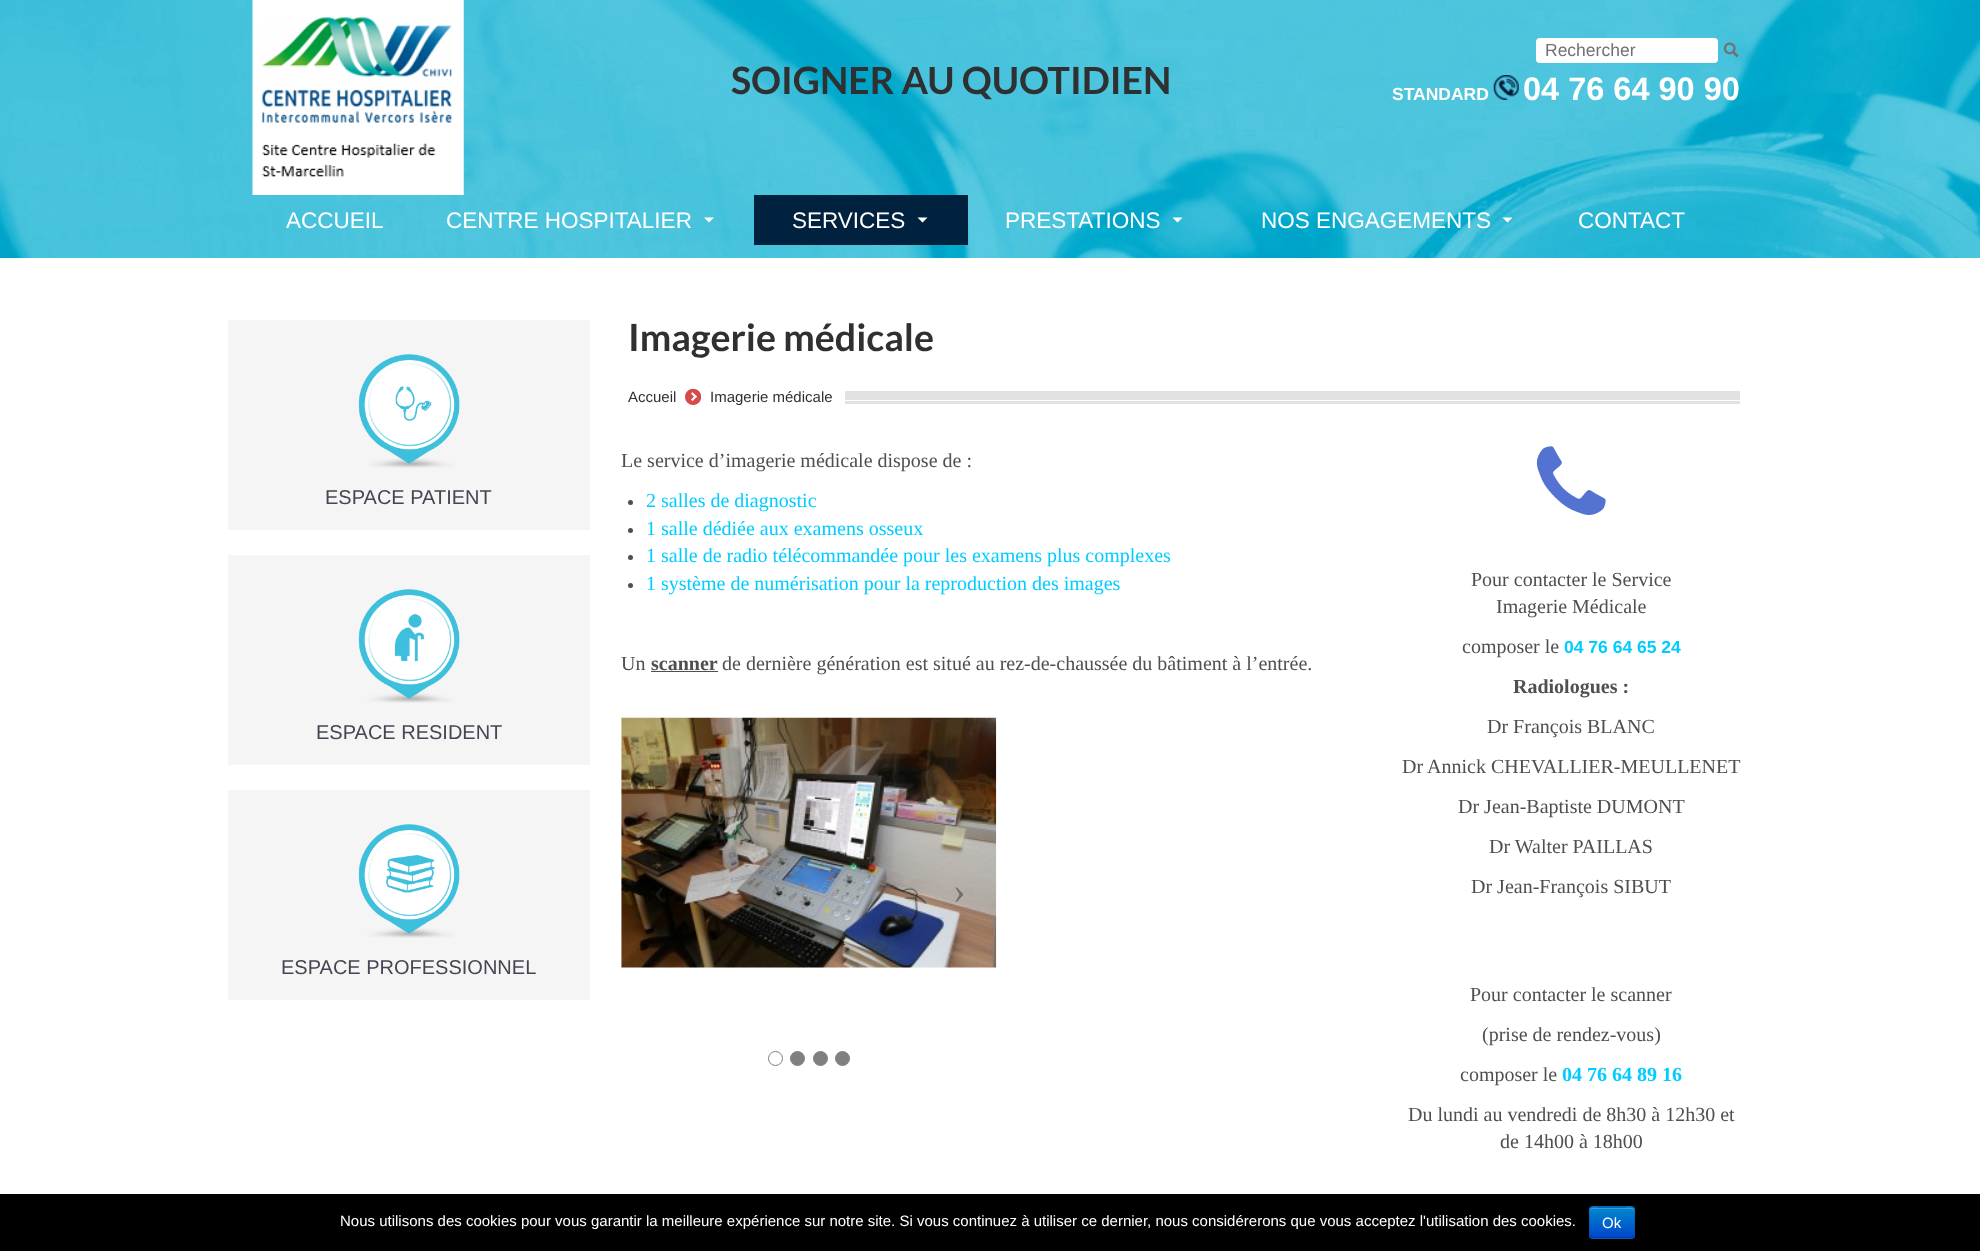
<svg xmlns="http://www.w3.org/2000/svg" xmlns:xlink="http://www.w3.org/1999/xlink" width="1980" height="1251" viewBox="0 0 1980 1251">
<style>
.cls-1{font:17.5px Liberation Sans;fill:#6f7172}
.cls-2{font:bold 37.5px Lato;fill:#2e3031}
.cls-3{font:bold 17.5px Liberation Sans;fill:#ffffff}
.cls-4{font:bold 32.5px Liberation Sans;fill:#ffffff}
.cls-5{font:22.5px Liberation Sans;fill:#ffffff}
.cls-6{font:20px Liberation Sans;fill:#464553}
.cls-7{font:15px Liberation Sans;fill:#2e3031}
.cls-8{font:20px Liberation Serif;fill:#4f4f4f}
.cls-9{font:20px Liberation Serif;fill:#00ccff}
.cls-10{font:bold 20px Liberation Serif;fill:#4f4f4f}
.cls-11{font:37.5px Liberation Serif;fill:#1a1b19}
.cls-12{font:37.5px Liberation Serif;fill:#716e6b}
.cls-13{font:bold 17.5px Liberation Sans;fill:#00ccff}
.cls-14{font:bold 20px Liberation Serif;fill:#00ccff}
.cls-15{font:15px Liberation Sans;fill:#ffffff}
</style>
<defs>
<clipPath id="clip1"><rect x="1589" y="1206" width="46" height="33" rx="4"/></clipPath>
<linearGradient id="g1" gradientUnits="userSpaceOnUse" x1="1612" y1="1208" x2="1612" y2="1238"><stop offset="0" stop-color="#0088cc"/><stop offset="1" stop-color="#0044cc"/></linearGradient>
</defs>
<rect width="100%" height="100%" fill="#ffffff"/>
<image xlink:href="image0.png" x="0" y="0" width="1980" height="258"/>
<image xlink:href="image1.png" x="252" y="0" width="212" height="195"/>
<rect fill="#ffffff" x="1536" y="38" width="182" height="25" rx="4"/>
<image xlink:href="image2.png" x="1723" y="42" width="16" height="16"/>
<image xlink:href="image3.png" x="1493" y="75" width="26" height="25"/>
<path fill="#ffffff" d="M704 217.5H714L709 222.5Z"/>
<rect fill="#00223e" x="754" y="195" width="214" height="50"/>
<path fill="#ffffff" d="M917.5 217.5H927.5L922.5 222.5Z"/>
<path fill="#ffffff" d="M1172.5 217.5H1182.5L1177.5 222.5Z"/>
<path fill="#ffffff" d="M1502.5 217.5H1512.5L1507.5 222.5Z"/>
<rect fill="#f5f5f5" x="228" y="320" width="362" height="210"/>
<image xlink:href="image4.png" x="358" y="354" width="102" height="114"/>
<rect fill="#f5f5f5" x="228" y="555" width="362" height="210"/>
<image xlink:href="image5.png" x="358" y="589" width="102" height="114"/>
<rect fill="#f5f5f5" x="228" y="790" width="362" height="210"/>
<image xlink:href="image6.png" x="358" y="824" width="102" height="114"/>
<image xlink:href="image7.png" x="685" y="389" width="16" height="16"/>
<rect fill="#e2e2e2" x="845" y="391" width="895" height="9"/>
<rect fill="#e2e2e2" x="845" y="401" width="895" height="3"/>
<circle fill="#4f4f4f" cx="630.5" cy="502.5" r="2.5"/>
<circle fill="#4f4f4f" cx="630.5" cy="530.5" r="2.5"/>
<circle fill="#4f4f4f" cx="630.5" cy="557.5" r="2.5"/>
<circle fill="#4f4f4f" cx="630.5" cy="585.5" r="2.5"/>
<rect fill="#4f4f4f" x="651" y="671" width="67" height="1"/>
<image xlink:href="image8.png" x="621" y="717" width="376" height="251"/>
<circle fill="none" stroke="#808080" cx="775.5" cy="1058.5" r="7"/>
<circle fill="#808080" stroke="#808080" cx="797.5" cy="1058.5" r="7"/>
<circle fill="#808080" stroke="#808080" cx="820.5" cy="1058.5" r="7"/>
<circle fill="#808080" stroke="#808080" cx="842.5" cy="1058.5" r="7"/>
<image xlink:href="image9.png" x="1536" y="446" width="70" height="69"/>
<rect fill="#000000" x="0" y="1194" width="1980" height="57"/>
<rect fill="#006dcc" x="1589" y="1206" width="46" height="33" rx="4"/>
<g clip-path="url(#clip1)">
<rect fill="url(#g1)" x="1589" y="1208" width="46" height="30"/>
</g>
<path fill="#339fd6" d="M1592 1209H1631C1633 1209 1634 1210 1634 1211C1634 1206 1628 1208 1625 1208H1599C1596 1208 1590 1206 1590 1211C1590 1210 1591 1209 1592 1209Z"/>
<path fill="none" stroke="#000000" stroke-opacity="0.25" stroke-width="1.2" d="M1633.5 1237L1631 1238H1592.5L1590.5 1237"/>
<path fill="none" stroke="#000000" stroke-opacity="0.1" stroke-width="1.2" d="M1590.5 1237C1588 1235 1589.5 1225.5 1589.5 1222.5C1589.5 1208 1586 1207 1599 1207H1625C1638 1207 1634.5 1208 1634.5 1222.5C1634.5 1225.5 1635.5 1235 1633.5 1237"/>
<text class="cls-1" x="1545" y="56">Rechercher</text>
<text class="cls-2" x="731" y="94">SOIGNER AU QUOTIDIEN</text>
<text class="cls-3" x="1392" y="100">STANDARD</text>
<text class="cls-4" x="1523" y="100">04 76 64 90 90</text>
<text class="cls-5" x="286" y="228">ACCUEIL</text>
<text class="cls-5" x="446" y="228">CENTRE HOSPITALIER</text>
<text class="cls-5" x="792" y="228">SERVICES</text>
<text class="cls-5" x="1005" y="228">PRESTATIONS</text>
<text class="cls-5" x="1261" y="228">NOS ENGAGEMENTS</text>
<text class="cls-5" x="1578" y="228">CONTACT</text>
<text class="cls-6" x="325" y="504">ESPACE PATIENT</text>
<text class="cls-6" x="316" y="739">ESPACE RESIDENT</text>
<text class="cls-6" x="281" y="974">ESPACE PROFESSIONNEL</text>
<text class="cls-2" x="628" y="351">Imagerie médicale</text>
<text class="cls-7" x="628" y="402">Accueil</text>
<text class="cls-7" x="710" y="402">Imagerie médicale</text>
<text class="cls-8" x="621" y="467">Le service d’imagerie médicale dispose de :</text>
<text class="cls-9"><tspan x="646" y="507">2 salles de diagnostic</tspan><tspan x="646" y="535">1 salle dédiée aux examens osseux</tspan><tspan x="646" y="562">1 salle de radio télécommandée pour les examens plus complexes</tspan><tspan x="646" y="590">1 système de numérisation pour la reproduction des images</tspan></text>
<text class="cls-8" x="621" y="670">Un</text>
<text class="cls-10" x="651" y="670">scanner</text>
<text class="cls-8" x="722" y="670">de dernière génération est situé au rez-de-chaussée du bâtiment à l’entrée.</text>
<text class="cls-11" x="653" y="903">‹</text>
<text class="cls-12" x="953" y="903">›</text>
<text class="cls-8" x="1471" y="586">Pour contacter le Service</text>
<text class="cls-8" x="1496" y="613">Imagerie Médicale</text>
<text class="cls-8" x="1462" y="653">composer le</text>
<text class="cls-13" x="1564" y="653">04 76 64 65 24</text>
<text class="cls-10" x="1513" y="693">Radiologues :</text>
<text class="cls-8" x="1487" y="733">Dr François BLANC</text>
<text class="cls-8" x="1402" y="773">Dr Annick CHEVALLIER-MEULLENET</text>
<text class="cls-8" x="1458" y="813">Dr Jean-Baptiste DUMONT</text>
<text class="cls-8" x="1489" y="853">Dr Walter PAILLAS</text>
<text class="cls-8" x="1471" y="893">Dr Jean-François SIBUT</text>
<text class="cls-8" x="1470" y="1001">Pour contacter le scanner</text>
<text class="cls-8" x="1482" y="1041">(prise de rendez-vous)</text>
<text class="cls-8" x="1460" y="1081">composer le</text>
<text class="cls-14" x="1562" y="1081">04 76 64 89 16</text>
<text class="cls-8" x="1408" y="1121">Du lundi au vendredi de 8h30 à 12h30 et</text>
<text class="cls-8" x="1500" y="1148">de 14h00 à 18h00</text>
<text class="cls-15" x="340" y="1226">Nous utilisons des cookies pour vous garantir la meilleure expérience sur notre site. Si vous continuez à utiliser ce dernier, nous considérerons que vous acceptez l'utilisation des cookies.</text>
<text class="cls-15" x="1602" y="1228">Ok</text>
</svg>
